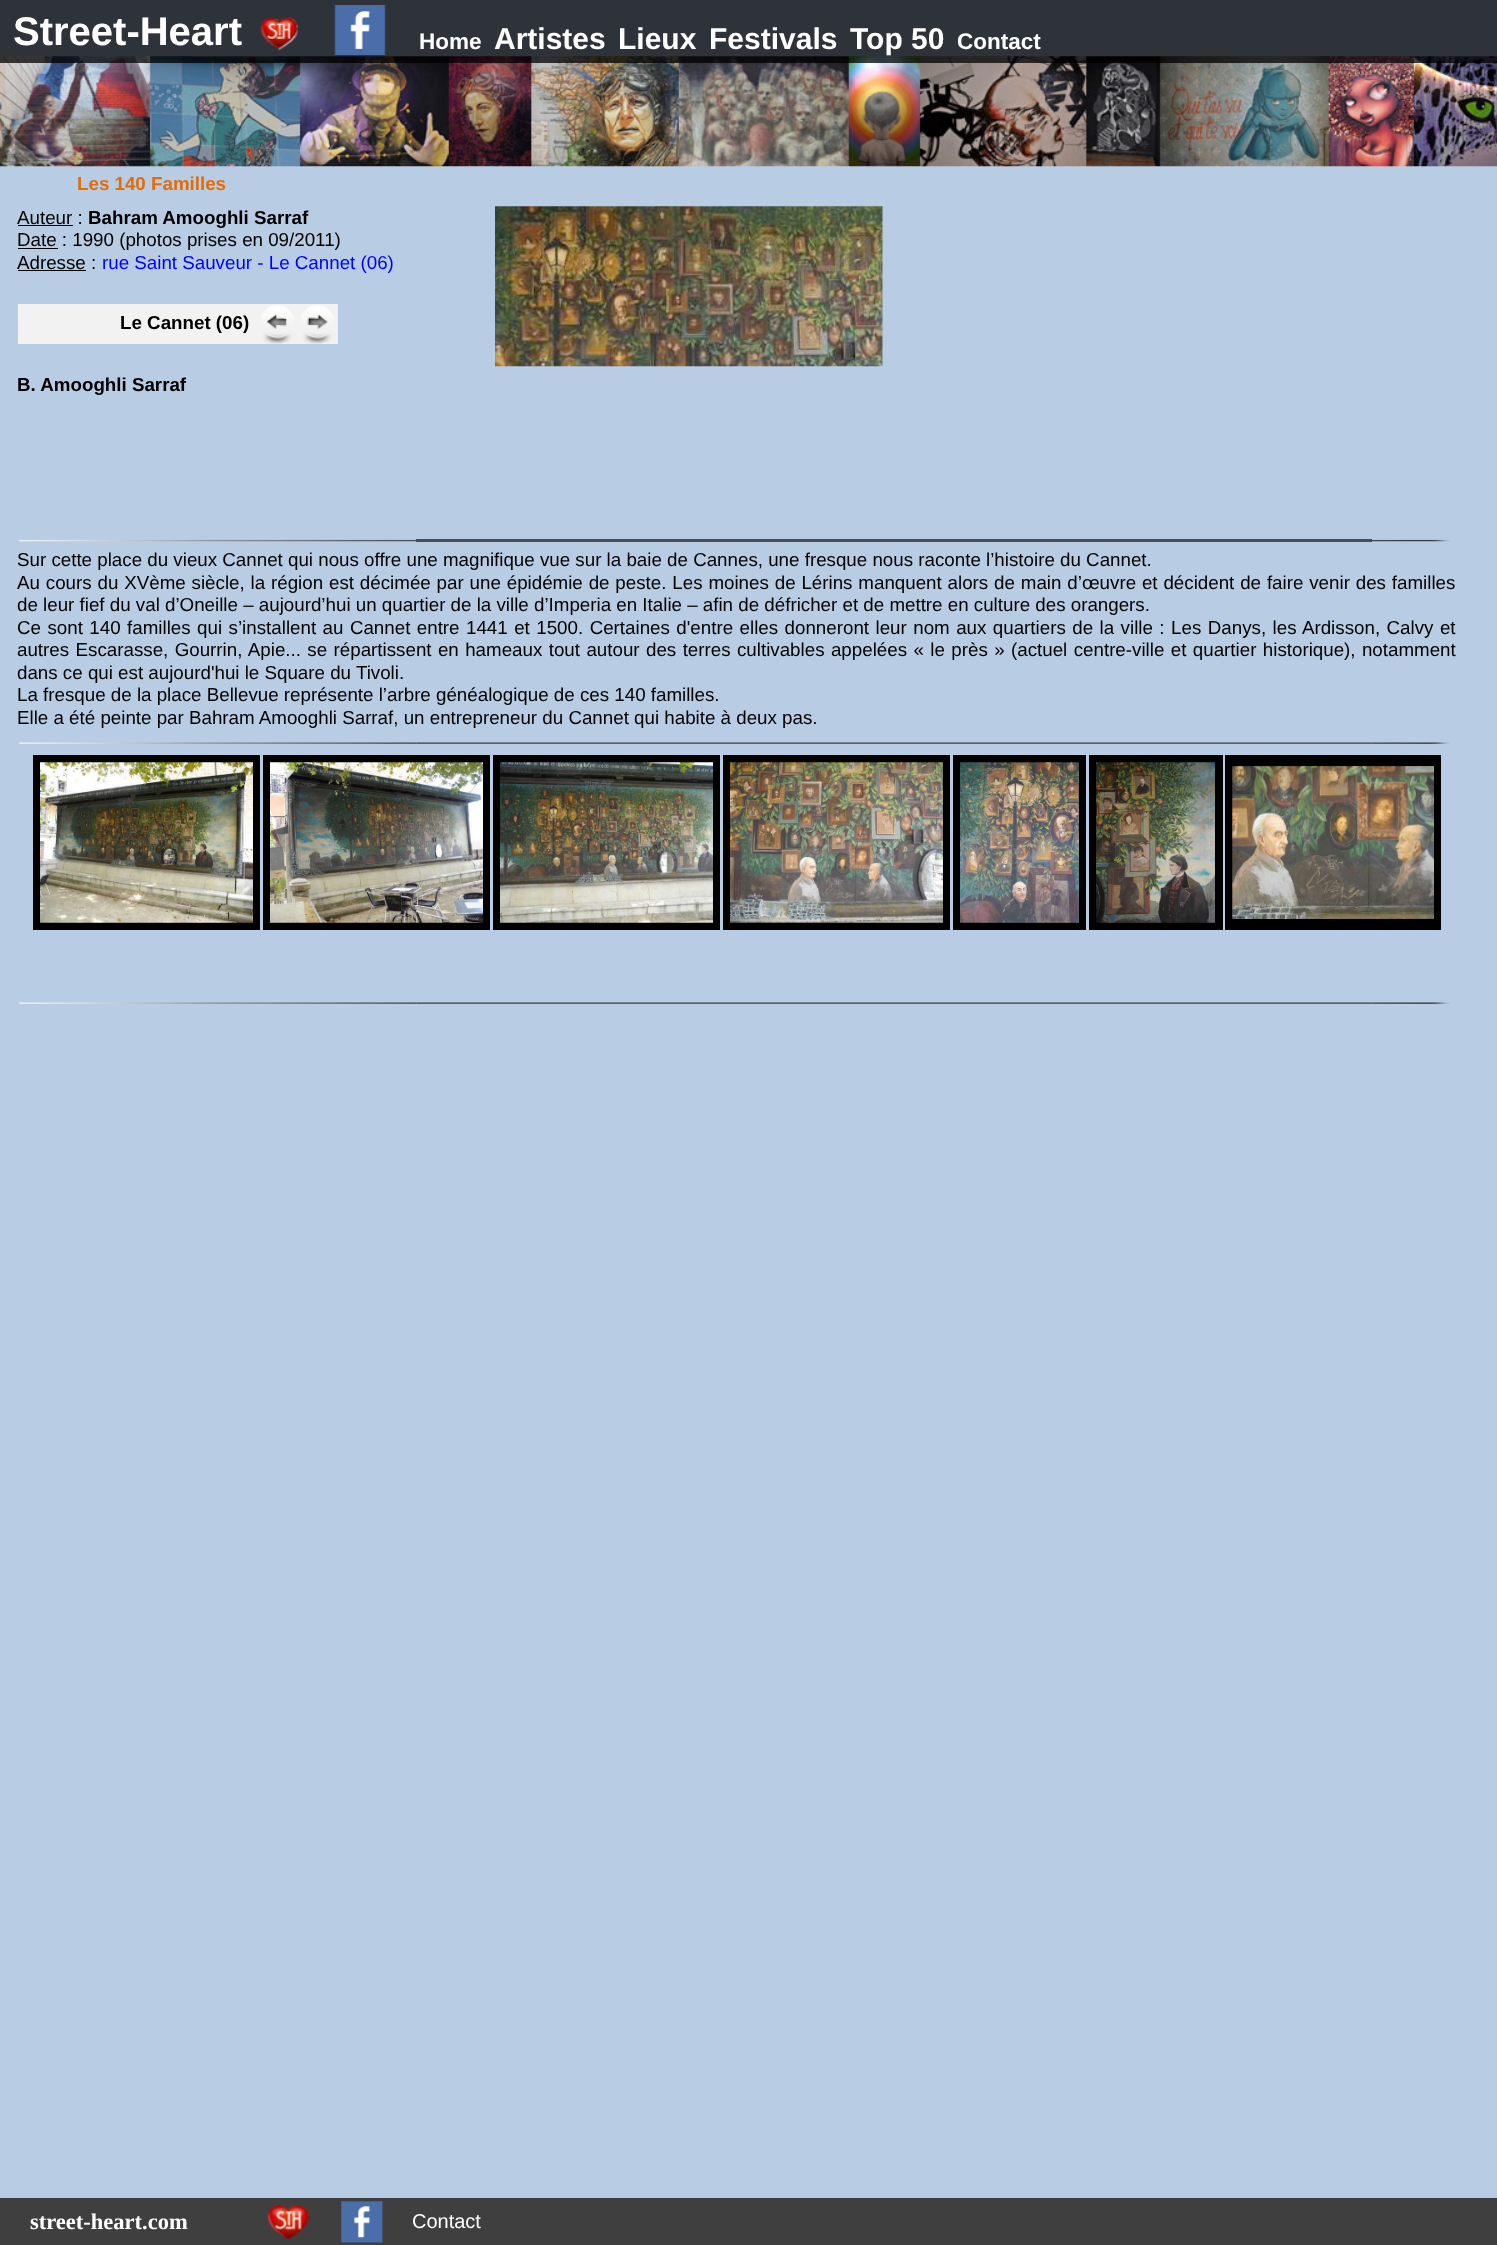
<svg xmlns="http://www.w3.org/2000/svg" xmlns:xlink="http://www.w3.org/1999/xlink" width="1497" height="2245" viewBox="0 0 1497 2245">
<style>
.cls-1{font:bold 40px Liberation Sans;fill:#ffffff}
.cls-2{font:bold 22.5px Liberation Sans;fill:#ffffff}
.cls-3{font:bold 30px Liberation Sans;fill:#ffffff}
.cls-4{font:bold 18.75px Liberation Sans;fill:#e36c09}
.cls-5{font:18.75px Liberation Sans;fill:#000000}
.cls-6{font:bold 18.75px Liberation Sans;fill:#000000}
.cls-7{font:18.75px Liberation Sans;fill:#0000ff}
.cls-8{font:bold 22.5px Liberation Serif;fill:#ffffff}
.cls-9{font:20px Liberation Sans;fill:#ffffff}
</style>
<rect width="100%" height="100%" fill="#b8cce4"/>
<image xlink:href="image2.png" x="0" y="56" width="1497" height="111"/>
<rect fill="#000000" fill-opacity="0.75" x="0" y="0" width="1497" height="63"/>
<image xlink:href="image0.png" x="260" y="17" width="38" height="34"/>
<image xlink:href="image1.png" x="334" y="5" width="52" height="50"/>
<rect fill="#000000" x="18" y="225" width="55" height="1"/>
<rect fill="#000000" x="18" y="248" width="40" height="1"/>
<rect fill="#000000" x="18" y="270" width="68" height="1"/>
<rect fill="#f2f2f2" x="18" y="304" width="320" height="40"/>
<image xlink:href="image3.png" x="261" y="305" width="33" height="39"/>
<image xlink:href="image4.png" x="301" y="305" width="33" height="39"/>
<image xlink:href="image5.png" x="495" y="206" width="388" height="161"/>
<image xlink:href="image6.png" x="18" y="539" width="399" height="3"/>
<rect fill="#3b393b" fill-opacity="0.87" x="416" y="539" width="956" height="3"/>
<image xlink:href="image7.png" x="1371" y="539" width="80" height="3"/>
<image xlink:href="image8.png" x="18" y="742" width="399" height="2"/>
<image xlink:href="image9.png" x="416" y="742" width="956" height="2"/>
<image xlink:href="image10.png" x="1371" y="742" width="79" height="2"/>
<rect fill="#000000" x="33" y="755" width="227" height="175"/>
<image xlink:href="image11.png" x="40" y="762" width="213" height="161"/>
<image xlink:href="image12.png" x="40" y="762" width="213" height="161"/>
<rect fill="#000000" x="263" y="755" width="227" height="175"/>
<image xlink:href="image13.png" x="270" y="762" width="213" height="161"/>
<image xlink:href="image14.png" x="270" y="762" width="213" height="161"/>
<rect fill="#000000" x="493" y="755" width="227" height="175"/>
<image xlink:href="image15.png" x="500" y="762" width="213" height="161"/>
<image xlink:href="image16.png" x="500" y="762" width="213" height="161"/>
<rect fill="#000000" x="723" y="755" width="227" height="175"/>
<image xlink:href="image17.png" x="730" y="762" width="213" height="161"/>
<image xlink:href="image18.png" x="730" y="762" width="213" height="161"/>
<rect fill="#000000" x="953" y="755" width="133" height="175"/>
<image xlink:href="image19.png" x="960" y="762" width="119" height="161"/>
<image xlink:href="image20.png" x="960" y="762" width="119" height="161"/>
<rect fill="#000000" x="1089" y="755" width="134" height="175"/>
<image xlink:href="image21.png" x="1096" y="762" width="119" height="161"/>
<image xlink:href="image22.png" x="1096" y="762" width="119" height="161"/>
<rect fill="#000000" x="1225" y="755" width="216" height="175"/>
<image xlink:href="image23.png" x="1232" y="766" width="202" height="153"/>
<image xlink:href="image24.png" x="1232" y="765" width="202" height="154"/>
<image xlink:href="image8.png" x="18" y="1002" width="399" height="2"/>
<image xlink:href="image9.png" x="416" y="1002" width="956" height="2"/>
<image xlink:href="image10.png" x="1371" y="1002" width="79" height="2"/>
<rect fill="#3f3f3f" x="0" y="2198" width="1497" height="47"/>
<image xlink:href="image25.png" x="267" y="2204" width="43" height="37"/>
<image xlink:href="image26.png" x="341" y="2201" width="43" height="43"/>
<text class="cls-1" x="13" y="45">Street-Heart</text>
<text class="cls-2" x="419" y="49">Home</text>
<text class="cls-3" x="494" y="49">Artistes</text>
<text class="cls-3" x="618" y="49">Lieux</text>
<text class="cls-3" x="709" y="49">Festivals</text>
<text class="cls-3" x="850" y="49">Top 50</text>
<text class="cls-2" x="957" y="49">Contact</text>
<text class="cls-4" x="77" y="190">Les 140 Familles</text>
<text class="cls-5" x="17" y="224">Auteur :</text>
<text class="cls-6" x="88" y="224">Bahram Amooghli Sarraf</text>
<text class="cls-5"><tspan x="17" y="246">Date : 1990 (photos prises en 09/2011)</tspan><tspan x="17" y="269">Adresse :</tspan></text>
<text class="cls-7" x="102" y="269">rue Saint Sauveur - Le Cannet (06)</text>
<text class="cls-6" x="120" y="329">Le Cannet (06)</text>
<text class="cls-6" x="17" y="391">B. Amooghli Sarraf</text>
<text class="cls-5"><tspan x="17" y="566">Sur cette place du vieux Cannet qui nous offre une magnifique vue sur la baie de Cannes, une fresque nous raconte l’histoire du Cannet.</tspan><tspan x="17" y="589" word-spacing="0.65">Au cours du XVème siècle, la région est décimée par une épidémie de peste. Les moines de Lérins manquent alors de main d’œuvre et décident de faire venir des familles</tspan><tspan x="17" y="611">de leur fief du val d’Oneille – aujourd’hui un quartier de la ville d’Imperia en Italie – afin de défricher et de mettre en culture des orangers.</tspan><tspan x="17" y="634" word-spacing="1.25">Ce sont 140 familles qui s’installent au Cannet entre 1441 et 1500. Certaines d'entre elles donneront leur nom aux quartiers de la ville : Les Danys, les Ardisson, Calvy et</tspan><tspan x="17" y="656" word-spacing="1.2">autres Escarasse, Gourrin, Apie... se répartissent en hameaux tout autour des terres cultivables appelées « le près » (actuel centre-ville et quartier historique), notamment</tspan><tspan x="17" y="679">dans ce qui est aujourd'hui le Square du Tivoli.</tspan><tspan x="17" y="701">La fresque de la place Bellevue représente l’arbre généalogique de ces 140 familles.</tspan><tspan x="17" y="724">Elle a été peinte par Bahram Amooghli Sarraf, un entrepreneur du Cannet qui habite à deux pas.</tspan></text>
<text class="cls-8" x="30" y="2229">street-heart.com</text>
<text class="cls-9" x="412" y="2228">Contact</text>
</svg>
